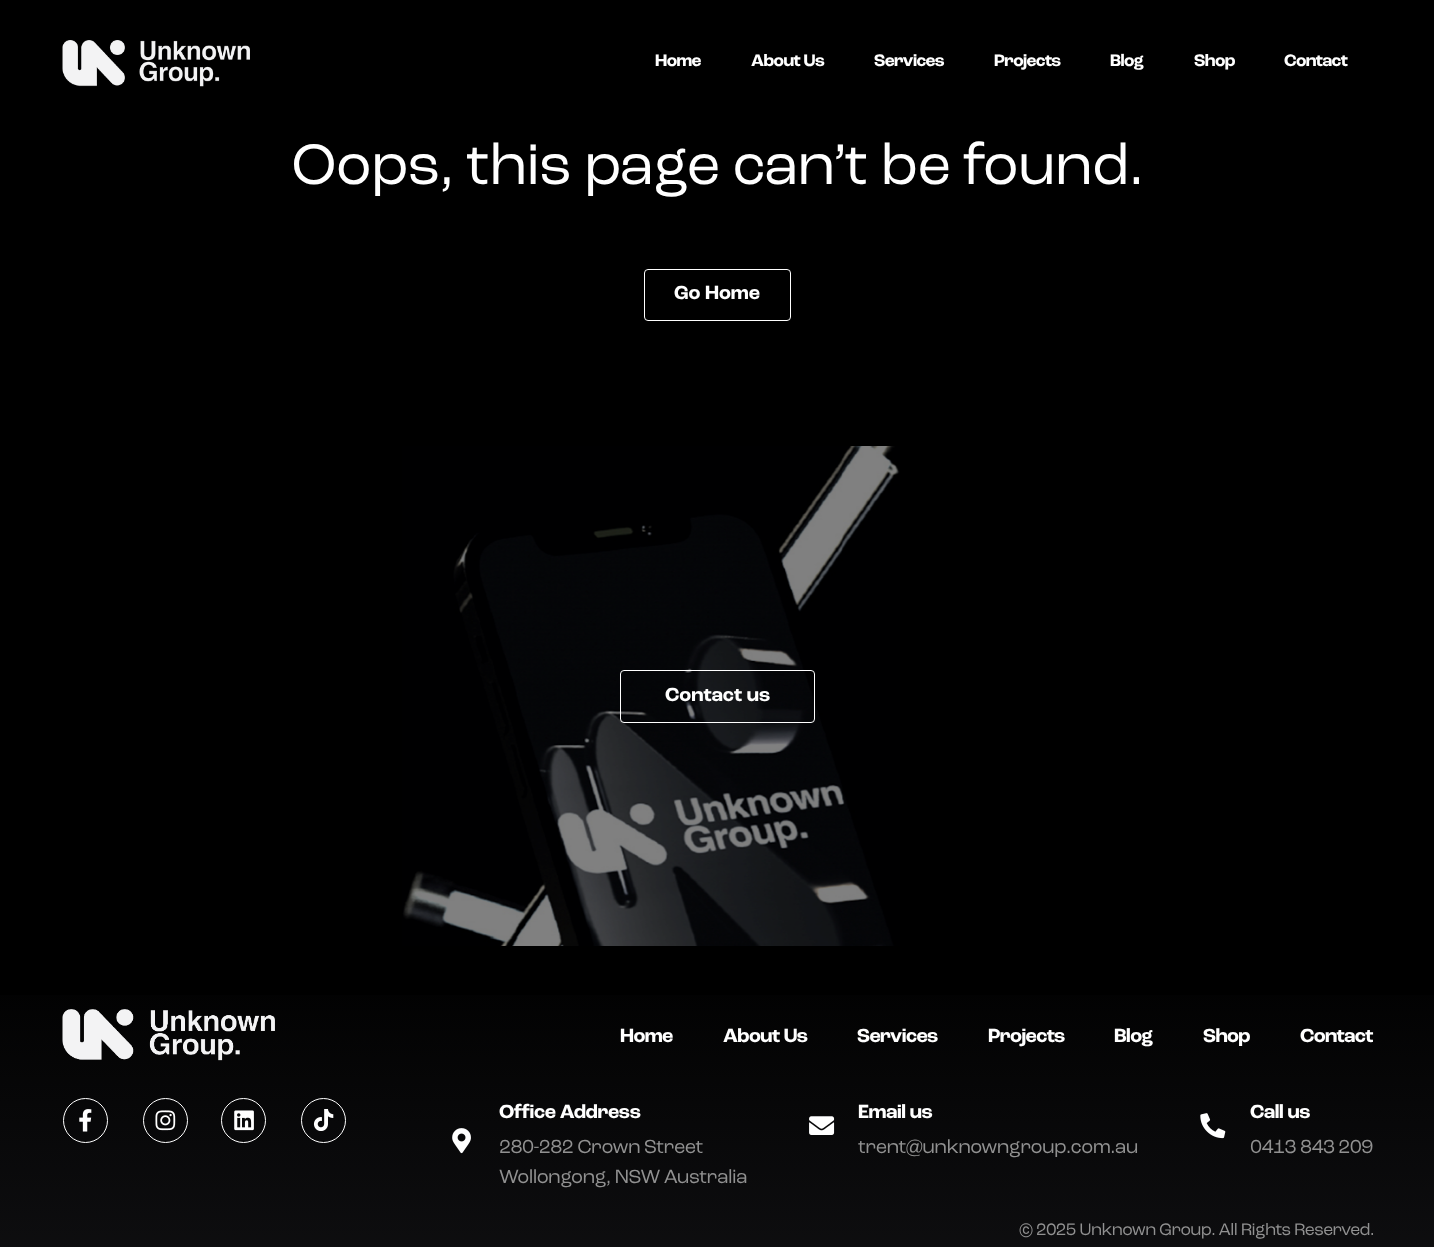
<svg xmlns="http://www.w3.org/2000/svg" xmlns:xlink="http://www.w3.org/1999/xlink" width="1434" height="1247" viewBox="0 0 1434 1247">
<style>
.cls-1{font:bold 17.5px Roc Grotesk;letter-spacing:-0.6px;fill:#ffffff}
.cls-2{font:60px Roc Grotesk;letter-spacing:-1px;fill:#ffffff}
.cls-3{font:bold 20px Roc Grotesk;fill:#ffffff}
.cls-4{font:bold 20px Roc Grotesk;letter-spacing:-0.6px;fill:#ffffff}
.cls-5{font:bold 20px Roc Grotesk;letter-spacing:-0.4px;fill:#ffffff}
.cls-6{font:20px Roc Grotesk;letter-spacing:-0.6px;fill:#919191}
.cls-7{font:17.5px Roc Grotesk;letter-spacing:-0.6px;fill:#919191}
</style>
<defs>
<linearGradient id="g1" gradientUnits="userSpaceOnUse" x1="718" y1="946" x2="718" y2="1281"><stop offset="0" stop-color="#000000"/><stop offset="1" stop-color="#0f0f11"/></linearGradient>
</defs>
<rect width="100%" height="100%" fill="#000000"/>
<image xlink:href="image0.png" x="62" y="40" width="188" height="47"/>
<rect fill="none" stroke="#ffffff" x="644.5" y="269.5" width="146" height="51" rx="3.5"/>
<image xlink:href="image1.png" x="402" y="446" width="498" height="500"/>
<rect fill="none" stroke="#ffffff" x="620.5" y="670.5" width="194" height="52" rx="3.5"/>
<rect fill="url(#g1)" x="0" y="995" width="1434" height="252"/>
<image xlink:href="image2.png" x="62" y="1009" width="213" height="52"/>
<circle fill="none" stroke="#ffffff" cx="85.5" cy="1120.5" r="22"/>
<image xlink:href="image3.png" x="79" y="1109" width="13" height="23"/>
<circle fill="none" stroke="#ffffff" cx="165.5" cy="1120.5" r="22"/>
<image xlink:href="image4.png" x="155" y="1110" width="21" height="21"/>
<circle fill="none" stroke="#ffffff" cx="243.5" cy="1120.5" r="22"/>
<image xlink:href="image5.png" x="234" y="1110" width="20" height="21"/>
<circle fill="none" stroke="#ffffff" cx="323.5" cy="1120.5" r="22"/>
<image xlink:href="image6.png" x="313" y="1109" width="21" height="22"/>
<image xlink:href="image7.png" x="452" y="1128" width="19" height="26"/>
<image xlink:href="image8.png" x="809" y="1116" width="26" height="19"/>
<image xlink:href="image9.png" x="1200" y="1113" width="26" height="26"/>
<text class="cls-1" x="655" y="66">Home</text>
<text class="cls-1" x="751" y="66">About Us</text>
<text class="cls-1" x="874" y="66">Services</text>
<text class="cls-1" x="994" y="66">Projects</text>
<text class="cls-1" x="1110" y="66">Blog</text>
<text class="cls-1" x="1194" y="66">Shop</text>
<text class="cls-1" x="1284" y="66">Contact</text>
<text class="cls-2" x="291" y="184">Oops, this page can’t be found.</text>
<text class="cls-3" x="674" y="299">Go Home</text>
<text class="cls-3" x="665" y="701">Contact us</text>
<text class="cls-4" x="620" y="1042">Home</text>
<text class="cls-4" x="723" y="1042">About Us</text>
<text class="cls-4" x="857" y="1042">Services</text>
<text class="cls-4" x="988" y="1042">Projects</text>
<text class="cls-4" x="1114" y="1042">Blog</text>
<text class="cls-4" x="1203" y="1042">Shop</text>
<text class="cls-4" x="1300" y="1042">Contact</text>
<text class="cls-5" x="499" y="1118">Office Address</text>
<text class="cls-6"><tspan x="499" y="1153">280-282 Crown Street</tspan><tspan x="499" y="1183">Wollongong, NSW Australia</tspan></text>
<text class="cls-5" x="858" y="1118">Email us</text>
<text class="cls-6" x="858" y="1153">trent@unknowngroup.com.au</text>
<text class="cls-5" x="1250" y="1118">Call us</text>
<text class="cls-6" x="1250" y="1153">0413 843 209</text>
<text class="cls-7" x="1019" y="1235">© 2025 Unknown Group. All Rights Reserved.</text>
</svg>
